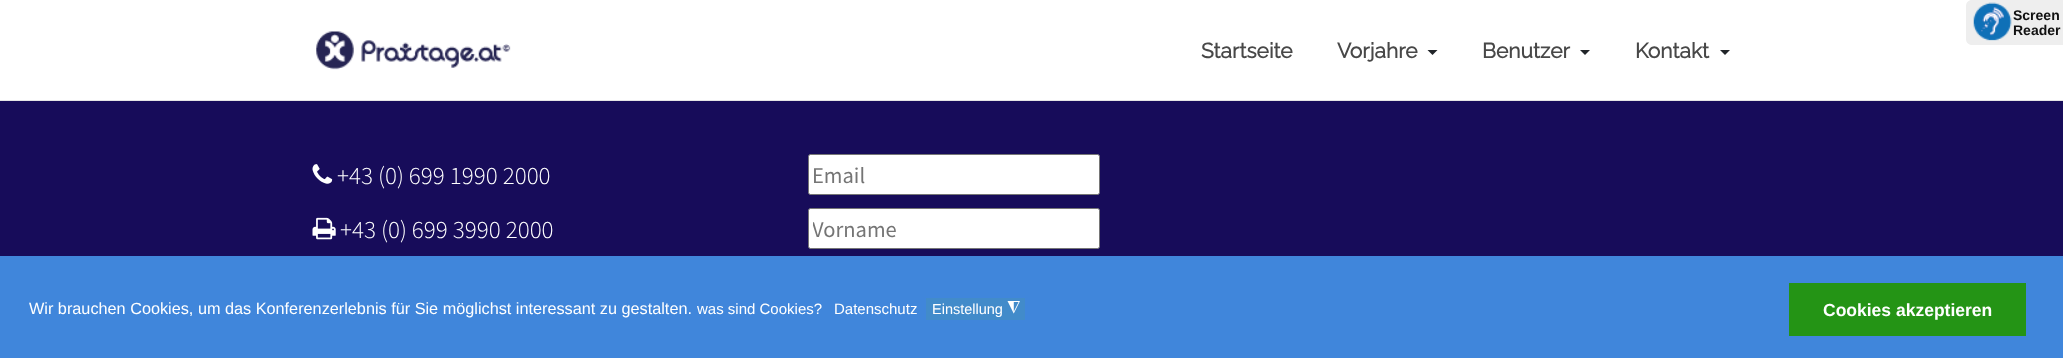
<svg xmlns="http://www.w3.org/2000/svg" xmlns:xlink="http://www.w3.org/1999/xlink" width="2063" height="358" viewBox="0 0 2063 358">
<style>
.cls-1{font:bold 14px Liberation Sans;fill:#111111}
.cls-2{font:bold 21px Raleway;fill:#484848}
.cls-3{font:300 25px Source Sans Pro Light;fill:#ffffff}
.cls-4{font:22.5px Source Sans Pro;fill:#757575}
.cls-5{font:16.25px Liberation Sans;fill:#ffffff}
.cls-6{font:15px Liberation Sans;fill:#ffffff}
.cls-7{font:14.5px Liberation Sans;fill:#ffffff}
.cls-8{font:16.25px DejaVu Sans;fill:#ffffff}
.cls-9{font:bold 17.5px Liberation Sans;fill:#ffffff}
</style>
<defs>
<clipPath id="clip1"><rect x="813" y="214" width="282" height="29"/></clipPath>
</defs>
<rect width="100%" height="100%" fill="#170c5a"/>
<rect fill="#ffffff" x="0" y="0" width="2063" height="100"/>
<path fill="#eeeeee" d="M1972 0H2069V45H1972C1968.5 45 1966 42.5 1966 39V6C1966 2.5 1968.5 0 1972 0Z"/>
<image xlink:href="image0.png" x="1973" y="2" width="39" height="39"/>
<rect fill="#e5e5e5" x="0" y="100" width="2063" height="1"/>
<image xlink:href="image1.png" x="316" y="31" width="195" height="39"/>
<path fill="#212529" d="M1427.5 50H1437.5L1432.5 55Z"/>
<path fill="#212529" d="M1580 50H1590L1585 55Z"/>
<path fill="#212529" d="M1720 50H1730L1725 55Z"/>
<image xlink:href="image2.png" x="312" y="164" width="21" height="20"/>
<image xlink:href="image3.png" x="312" y="217" width="24" height="23"/>
<rect fill="#ffffff" stroke="#767676" x="808.5" y="154.5" width="291" height="40" rx="2"/>
<rect fill="#ffffff" stroke="#767676" x="808.5" y="208.5" width="291" height="40" rx="2"/>
<rect fill="#4086db" x="0" y="256" width="2063" height="102"/>
<rect fill="#428bca" x="926" y="298" width="99" height="22"/>
<rect fill="#249415" x="1789" y="283" width="237" height="53"/>
<text class="cls-1"><tspan x="2013" y="20">Screen</tspan><tspan x="2013" y="35">Reader</tspan></text>
<text class="cls-2" x="1201" y="58">Startseite</text>
<text class="cls-2" x="1337" y="58">Vorjahre</text>
<text class="cls-2" x="1482" y="58">Benutzer</text>
<text class="cls-2" x="1635" y="58">Kontakt</text>
<text class="cls-3" x="337" y="184">+43 (0) 699 1990 2000</text>
<text class="cls-3" x="340" y="238">+43 (0) 699 3990 2000</text>
<text class="cls-4" x="812" y="183">Email</text>
<g clip-path="url(#clip1)">
<text class="cls-4" x="812" y="237">Vorname</text>
</g>
<text class="cls-5" x="29" y="314">Wir brauchen Cookies, um das Konferenzerlebnis für Sie möglichst interessant zu gestalten.</text>
<text class="cls-6" x="697" y="314">was sind Cookies?</text>
<text class="cls-6" x="834" y="314">Datenschutz</text>
<text class="cls-7" x="932" y="314">Einstellung</text>
<text class="cls-8" x="1020" y="303" transform="rotate(180 1020 303)">◮</text>
<text class="cls-9" x="1823" y="316">Cookies akzeptieren</text>
</svg>
